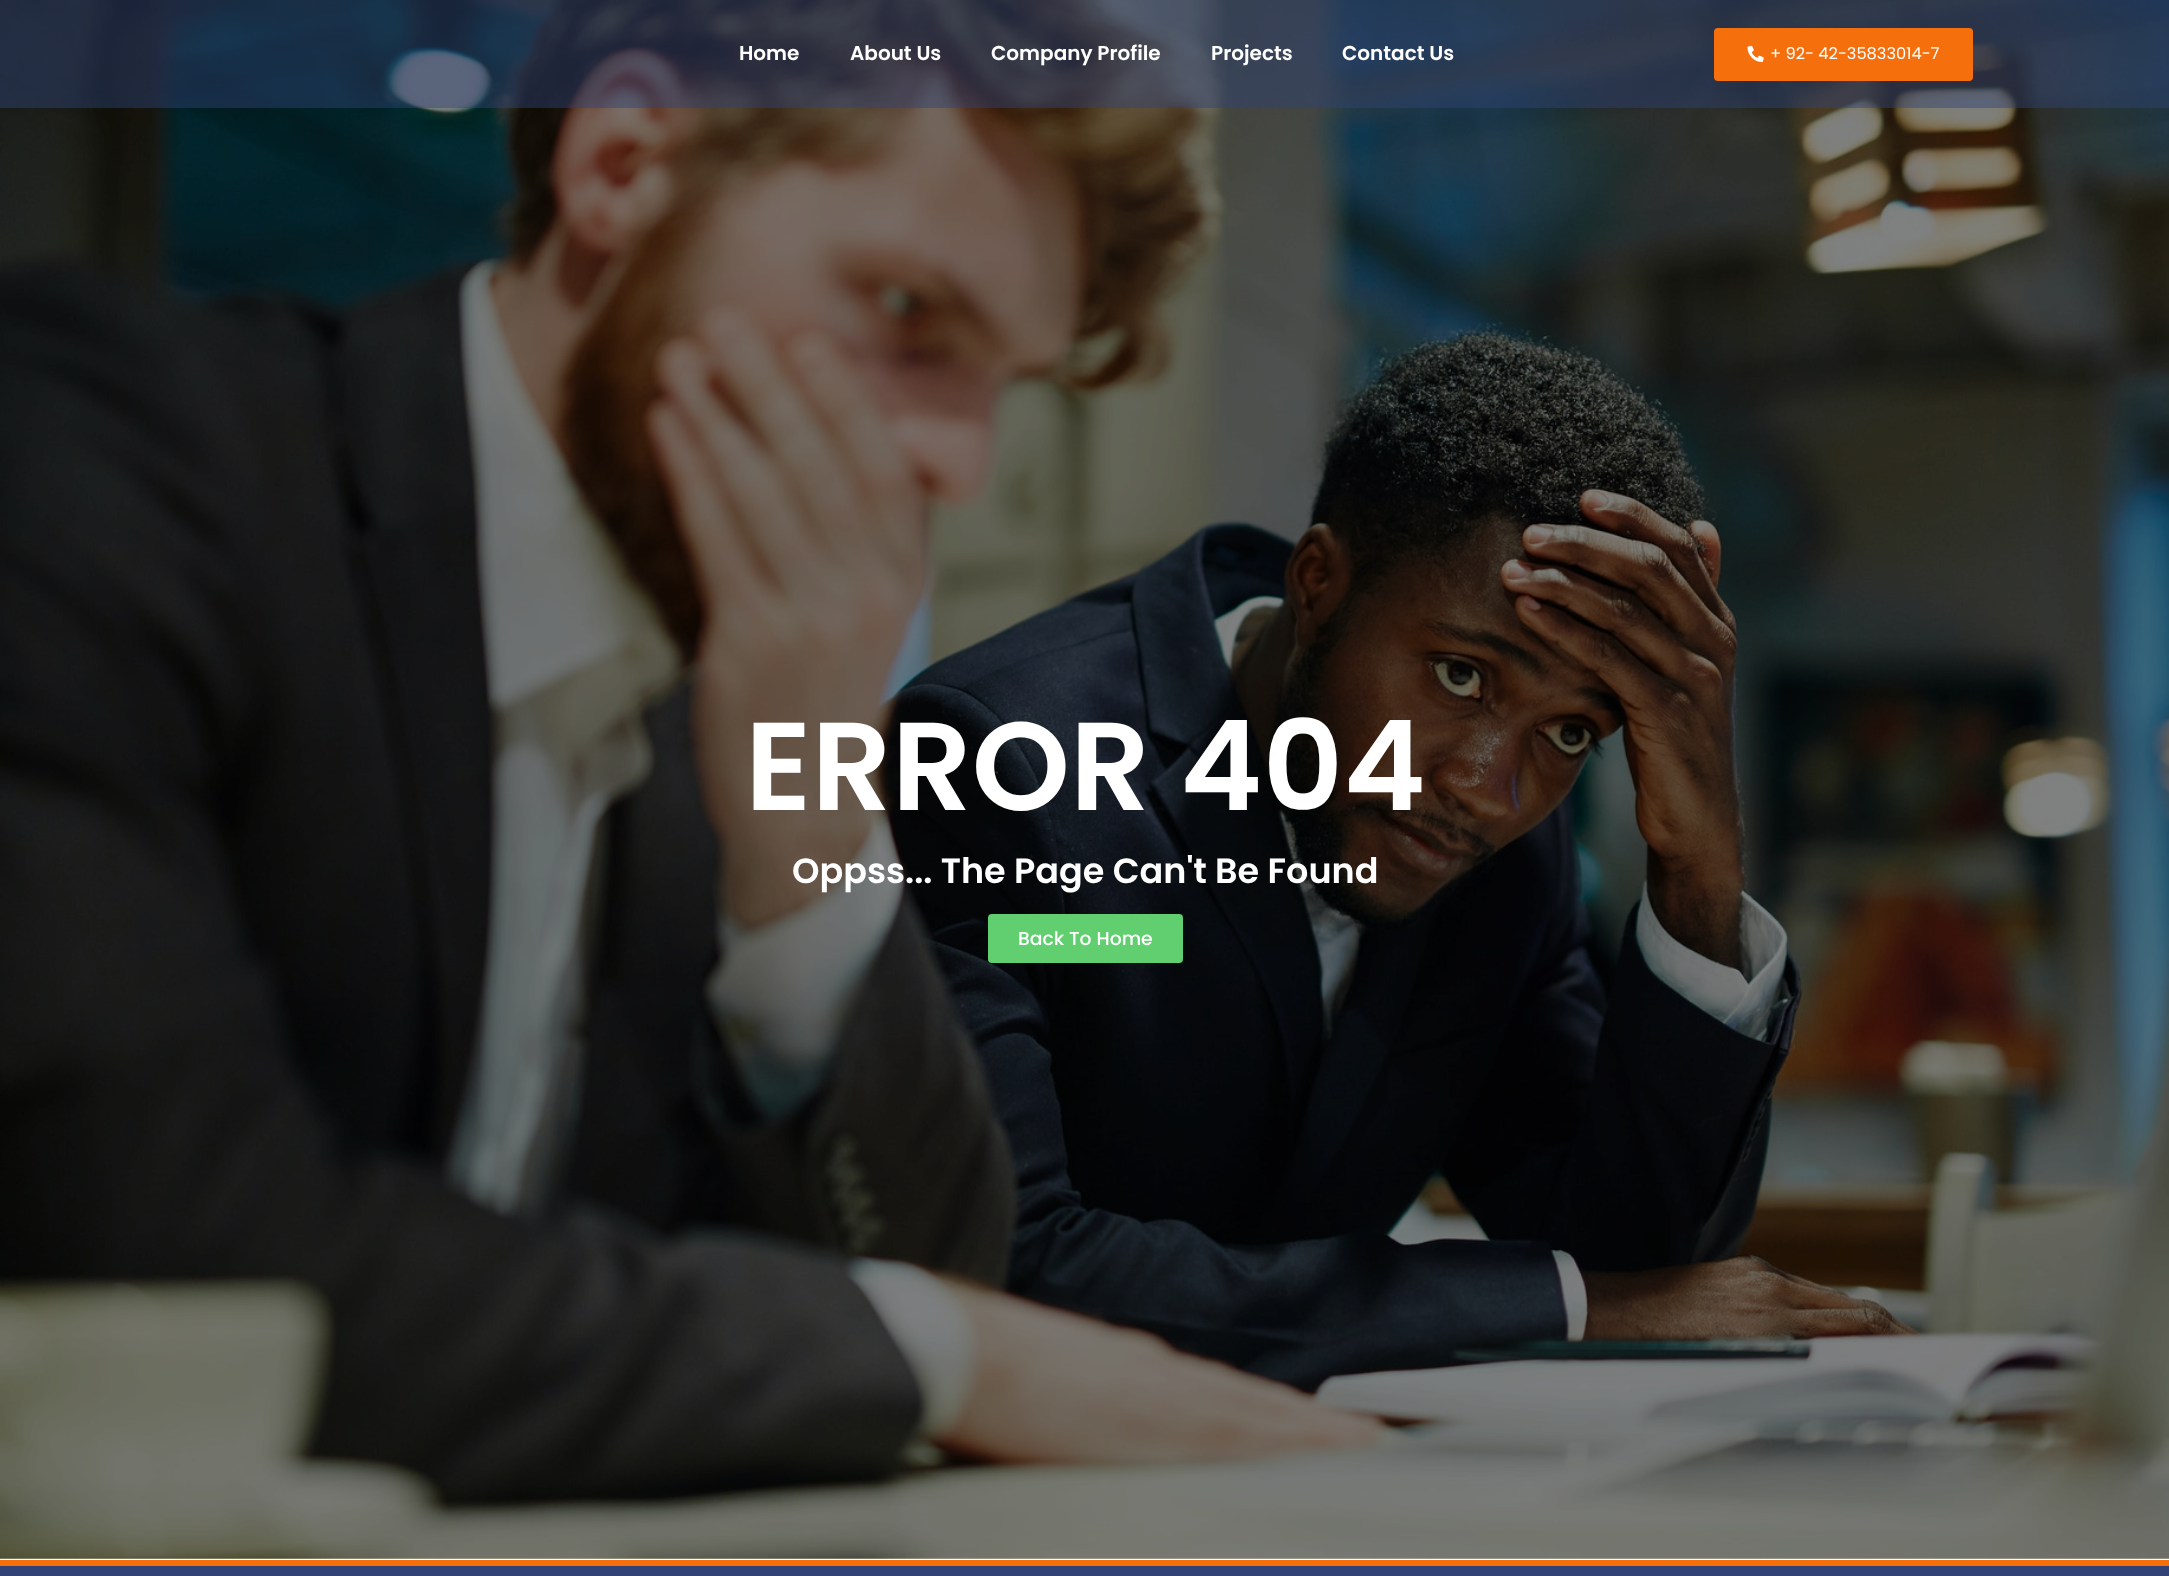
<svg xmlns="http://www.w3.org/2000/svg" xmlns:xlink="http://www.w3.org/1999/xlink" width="2169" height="1576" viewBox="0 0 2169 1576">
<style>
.cls-1{font:600 20px Poppins;fill:#ffffff}
.cls-2{font:16.25px Poppins;fill:#ffffff}
.cls-3{font:600 125px Poppins;fill:#ffffff}
.cls-4{font:600 35px Poppins;fill:#ffffff}
.cls-5{font:500 18.75px Poppins;fill:#ffffff}
</style>
<rect width="100%" height="100%" fill="#ffffff"/>
<image xlink:href="image1.png" x="0" y="0" width="2169" height="1559"/>
<rect fill="#314376" fill-opacity="0.46" x="0" y="0" width="2169" height="108"/>
<rect fill="#f66f0d" stroke="#f66f0d" stroke-width="4" x="1716" y="30" width="255" height="49" rx="2"/>
<image xlink:href="image0.png" x="1747" y="45" width="17" height="17"/>
<rect fill="#61ce70" x="988" y="914" width="195" height="49" rx="4"/>
<rect fill="#314376" x="0" y="1566" width="2169" height="10"/>
<rect fill="#f66f0d" x="0" y="1560" width="2169" height="6"/>
<text class="cls-1" x="739" y="60">Home</text>
<text class="cls-1" x="850" y="60">About Us</text>
<text class="cls-1" x="991" y="60">Company Profile</text>
<text class="cls-1" x="1211" y="60">Projects</text>
<text class="cls-1" x="1342" y="60">Contact Us</text>
<text class="cls-2" x="1770" y="59">+ 92- 42-35833014-7</text>
<text class="cls-3" x="745" y="810">ERROR 404</text>
<text class="cls-4" x="792" y="883">Oppss... The Page Can't Be Found</text>
<text class="cls-5" x="1018" y="945">Back To Home</text>
</svg>
